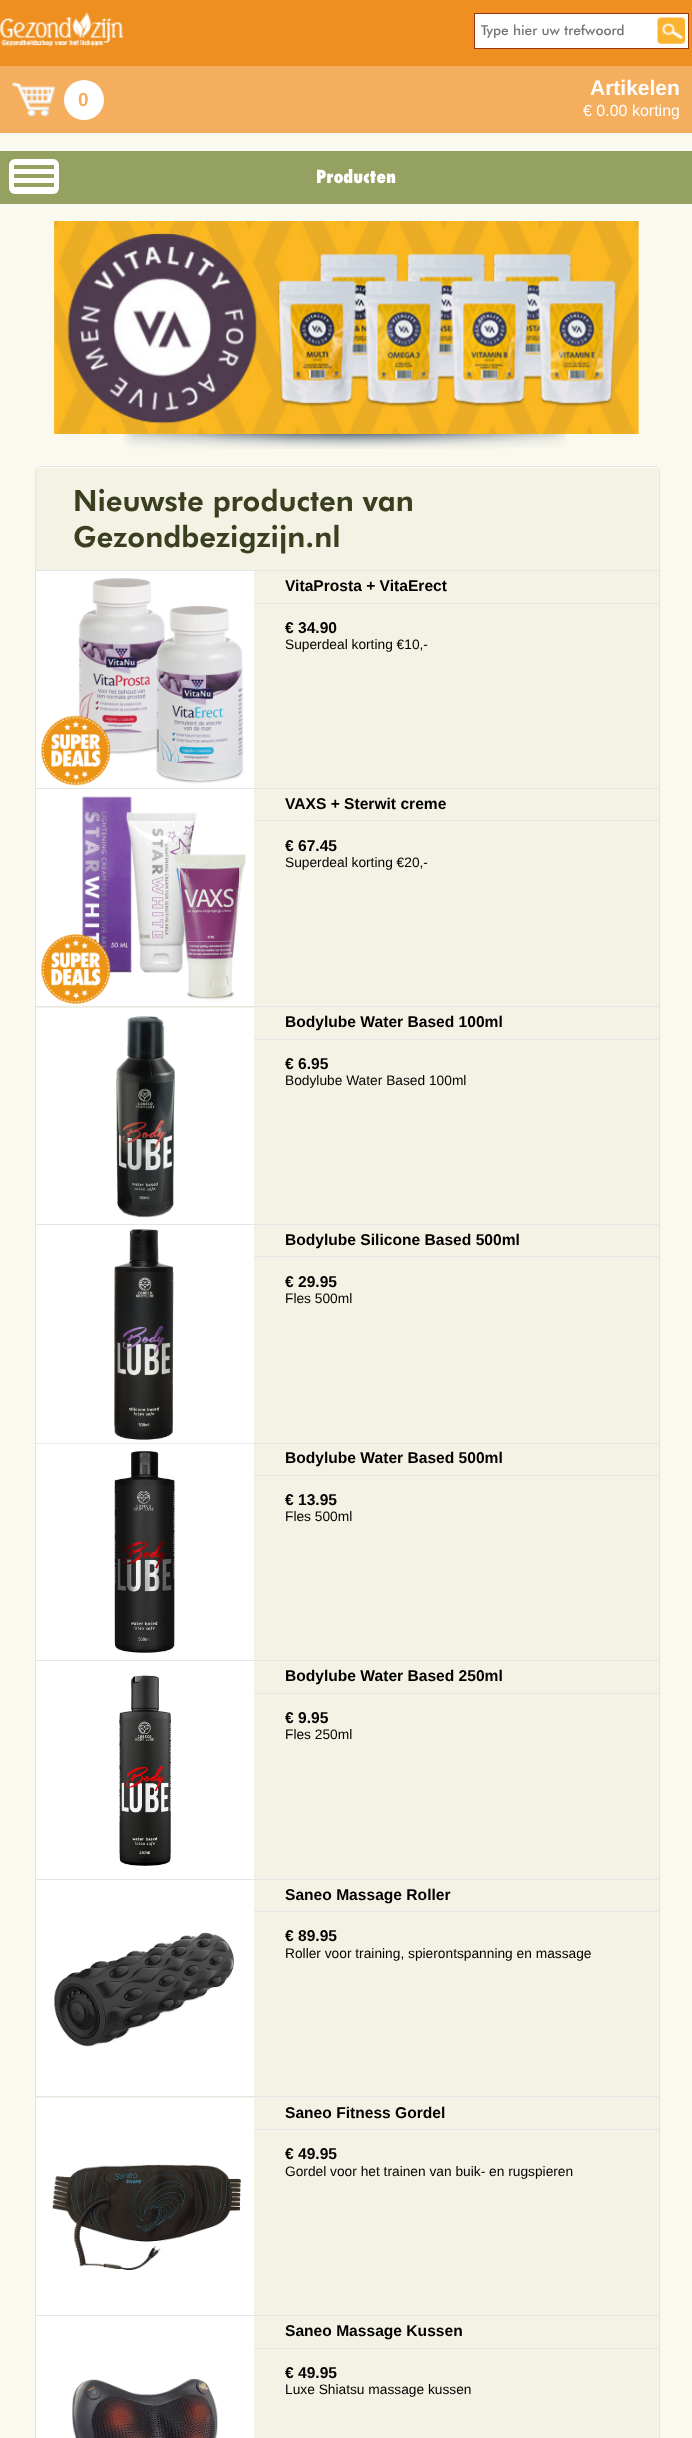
<svg xmlns="http://www.w3.org/2000/svg" xmlns:xlink="http://www.w3.org/1999/xlink" width="692" height="2438" viewBox="0 0 692 2438">
<style>
.cls-1{font:500 13.75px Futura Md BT;fill:#757575}
.cls-2{font:bold 19px Liberation Sans;fill:#f4ae5d}
.cls-3{font:bold 21px Liberation Sans;fill:#ffffff}
.cls-4{font:16px Liberation Sans;fill:#ffffff}
.cls-5{font:800 17.5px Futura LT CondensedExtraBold;fill:#ffffff}
.cls-6{font:900 29.25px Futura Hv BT;fill:#3a3f1f}
.cls-7{font:bold 15.6px Liberation Sans;fill:#000000}
.cls-8{font:13.75px Liberation Sans;fill:#000000}
</style>
<rect width="100%" height="100%" fill="#faf9ef"/>
<rect fill="#ee8f20" x="0" y="0" width="692" height="66"/>
<image xlink:href="image0.png" x="0" y="12" width="124" height="35"/>
<rect fill="#ffffff" stroke="#9b340e" x="474.5" y="13.5" width="214" height="35"/>
<image xlink:href="image1.png" x="657" y="17" width="28" height="27"/>
<rect fill="#f4ae5d" x="0" y="66" width="692" height="67"/>
<image xlink:href="image2.png" x="12" y="82" width="43" height="35"/>
<circle fill="#ffffff" cx="84" cy="100" r="20"/>
<rect fill="#94a160" x="0" y="151" width="692" height="53"/>
<rect fill="#ffffff" x="9" y="159" width="50" height="35" rx="6"/>
<rect fill="#94a160" x="14" y="165" width="40" height="4"/>
<rect fill="#94a160" x="14" y="174" width="40" height="4"/>
<rect fill="#94a160" x="14" y="183" width="40" height="4"/>
<rect fill="#ffffff" x="54" y="221" width="585" height="213"/>
<image xlink:href="image3.png" x="54" y="221" width="585" height="213"/>
<image xlink:href="image4.png" x="123" y="434" width="444" height="15"/>
<path fill="#ffffff" stroke="#e4e5e5" d="M40 466.5H655C657.5 466.5 659.5 468.5 659.5 471V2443.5H35.5V471C35.5 468.5 37.5 466.5 40 466.5Z"/>
<rect fill="#f4f2e4" x="36" y="468" width="623" height="102"/>
<rect fill="#f4f2e4" x="254" y="571" width="405" height="217"/>
<rect fill="#e4e5e5" x="36" y="570" width="623" height="1"/>
<image xlink:href="image5.png" x="41" y="578" width="203" height="208"/>
<rect fill="#e4e5e5" x="254" y="603" width="405" height="1"/>
<rect fill="#f4f2e4" x="254" y="789" width="405" height="217"/>
<rect fill="#e4e5e5" x="36" y="788" width="623" height="1"/>
<image xlink:href="image6.png" x="41" y="796" width="205" height="208"/>
<rect fill="#e4e5e5" x="254" y="820" width="405" height="1"/>
<rect fill="#f4f2e4" x="36" y="1007" width="623" height="217"/>
<rect fill="#e4e5e5" x="36" y="1006" width="623" height="1"/>
<rect fill="#ffffff" x="36" y="1008" width="218" height="216"/>
<image xlink:href="image7.png" x="116" y="1016" width="59" height="202"/>
<rect fill="#e4e5e5" x="254" y="1039" width="405" height="1"/>
<rect fill="#f4f2e4" x="254" y="1225" width="405" height="218"/>
<rect fill="#e4e5e5" x="36" y="1224" width="623" height="1"/>
<image xlink:href="image8.png" x="114" y="1229" width="60" height="211"/>
<rect fill="#e4e5e5" x="254" y="1256" width="405" height="1"/>
<rect fill="#f4f2e4" x="36" y="1444" width="623" height="216"/>
<rect fill="#e4e5e5" x="36" y="1443" width="623" height="1"/>
<image xlink:href="image9.png" x="36" y="1443" width="218" height="217"/>
<rect fill="#e4e5e5" x="254" y="1475" width="405" height="1"/>
<rect fill="#f4f2e4" x="254" y="1661" width="405" height="218"/>
<rect fill="#e4e5e5" x="36" y="1660" width="623" height="1"/>
<image xlink:href="image10.png" x="119" y="1675" width="52" height="191"/>
<rect fill="#e4e5e5" x="254" y="1693" width="405" height="1"/>
<rect fill="#f4f2e4" x="254" y="1880" width="405" height="216"/>
<rect fill="#e4e5e5" x="36" y="1879" width="623" height="1"/>
<rect fill="#e4e5e5" x="254" y="1911" width="405" height="1"/>
<image xlink:href="image11.png" x="54" y="1932" width="180" height="115"/>
<rect fill="#f4f2e4" x="36" y="2097" width="623" height="218"/>
<rect fill="#e4e5e5" x="36" y="2096" width="623" height="1"/>
<rect fill="#ffffff" x="36" y="2098" width="218" height="217"/>
<image xlink:href="image12.png" x="52" y="2164" width="189" height="106"/>
<rect fill="#e4e5e5" x="254" y="2129" width="405" height="1"/>
<rect fill="#f4f2e4" x="254" y="2316" width="405" height="122"/>
<rect fill="#e4e5e5" x="36" y="2315" width="623" height="1"/>
<rect fill="#e4e5e5" x="254" y="2348" width="405" height="1"/>
<image xlink:href="image13.png" x="72" y="2378" width="146" height="60"/>
<text class="cls-1" x="481" y="35">Type hier uw trefwoord</text>
<text class="cls-2" x="78" y="106">0</text>
<text class="cls-3" x="590" y="95">Artikelen</text>
<text class="cls-4" x="583" y="116">€ 0.00 korting</text>
<text class="cls-5" x="316" y="183">Producten</text>
<text class="cls-6"><tspan x="73" y="511">Nieuwste producten van</tspan><tspan x="73" y="547">Gezondbezigzijn.nl</tspan></text>
<text class="cls-7" x="285" y="591">VitaProsta + VitaErect</text>
<text class="cls-7" x="285" y="633">€ 34.90</text>
<text class="cls-8" x="285" y="649">Superdeal korting €10,-</text>
<text class="cls-7" x="285" y="809">VAXS + Sterwit creme</text>
<text class="cls-7" x="285" y="851">€ 67.45</text>
<text class="cls-8" x="285" y="867">Superdeal korting €20,-</text>
<text class="cls-7" x="285" y="1027">Bodylube Water Based 100ml</text>
<text class="cls-7" x="285" y="1069">€ 6.95</text>
<text class="cls-8" x="285" y="1085">Bodylube Water Based 100ml</text>
<text class="cls-7" x="285" y="1245">Bodylube Silicone Based 500ml</text>
<text class="cls-7" x="285" y="1287">€ 29.95</text>
<text class="cls-8" x="285" y="1303">Fles 500ml</text>
<text class="cls-7" x="285" y="1463">Bodylube Water Based 500ml</text>
<text class="cls-7" x="285" y="1505">€ 13.95</text>
<text class="cls-8" x="285" y="1521">Fles 500ml</text>
<text class="cls-7" x="285" y="1681">Bodylube Water Based 250ml</text>
<text class="cls-7" x="285" y="1723">€ 9.95</text>
<text class="cls-8" x="285" y="1739">Fles 250ml</text>
<text class="cls-7" x="285" y="1900">Saneo Massage Roller</text>
<text class="cls-7" x="285" y="1941">€ 89.95</text>
<text class="cls-8" x="285" y="1958">Roller voor training, spierontspanning en massage</text>
<text class="cls-7" x="285" y="2118">Saneo Fitness Gordel</text>
<text class="cls-7" x="285" y="2159">€ 49.95</text>
<text class="cls-8" x="285" y="2176">Gordel voor het trainen van buik- en rugspieren</text>
<text class="cls-7" x="285" y="2336">Saneo Massage Kussen</text>
<text class="cls-7" x="285" y="2378">€ 49.95</text>
<text class="cls-8" x="285" y="2394">Luxe Shiatsu massage kussen</text>
</svg>
